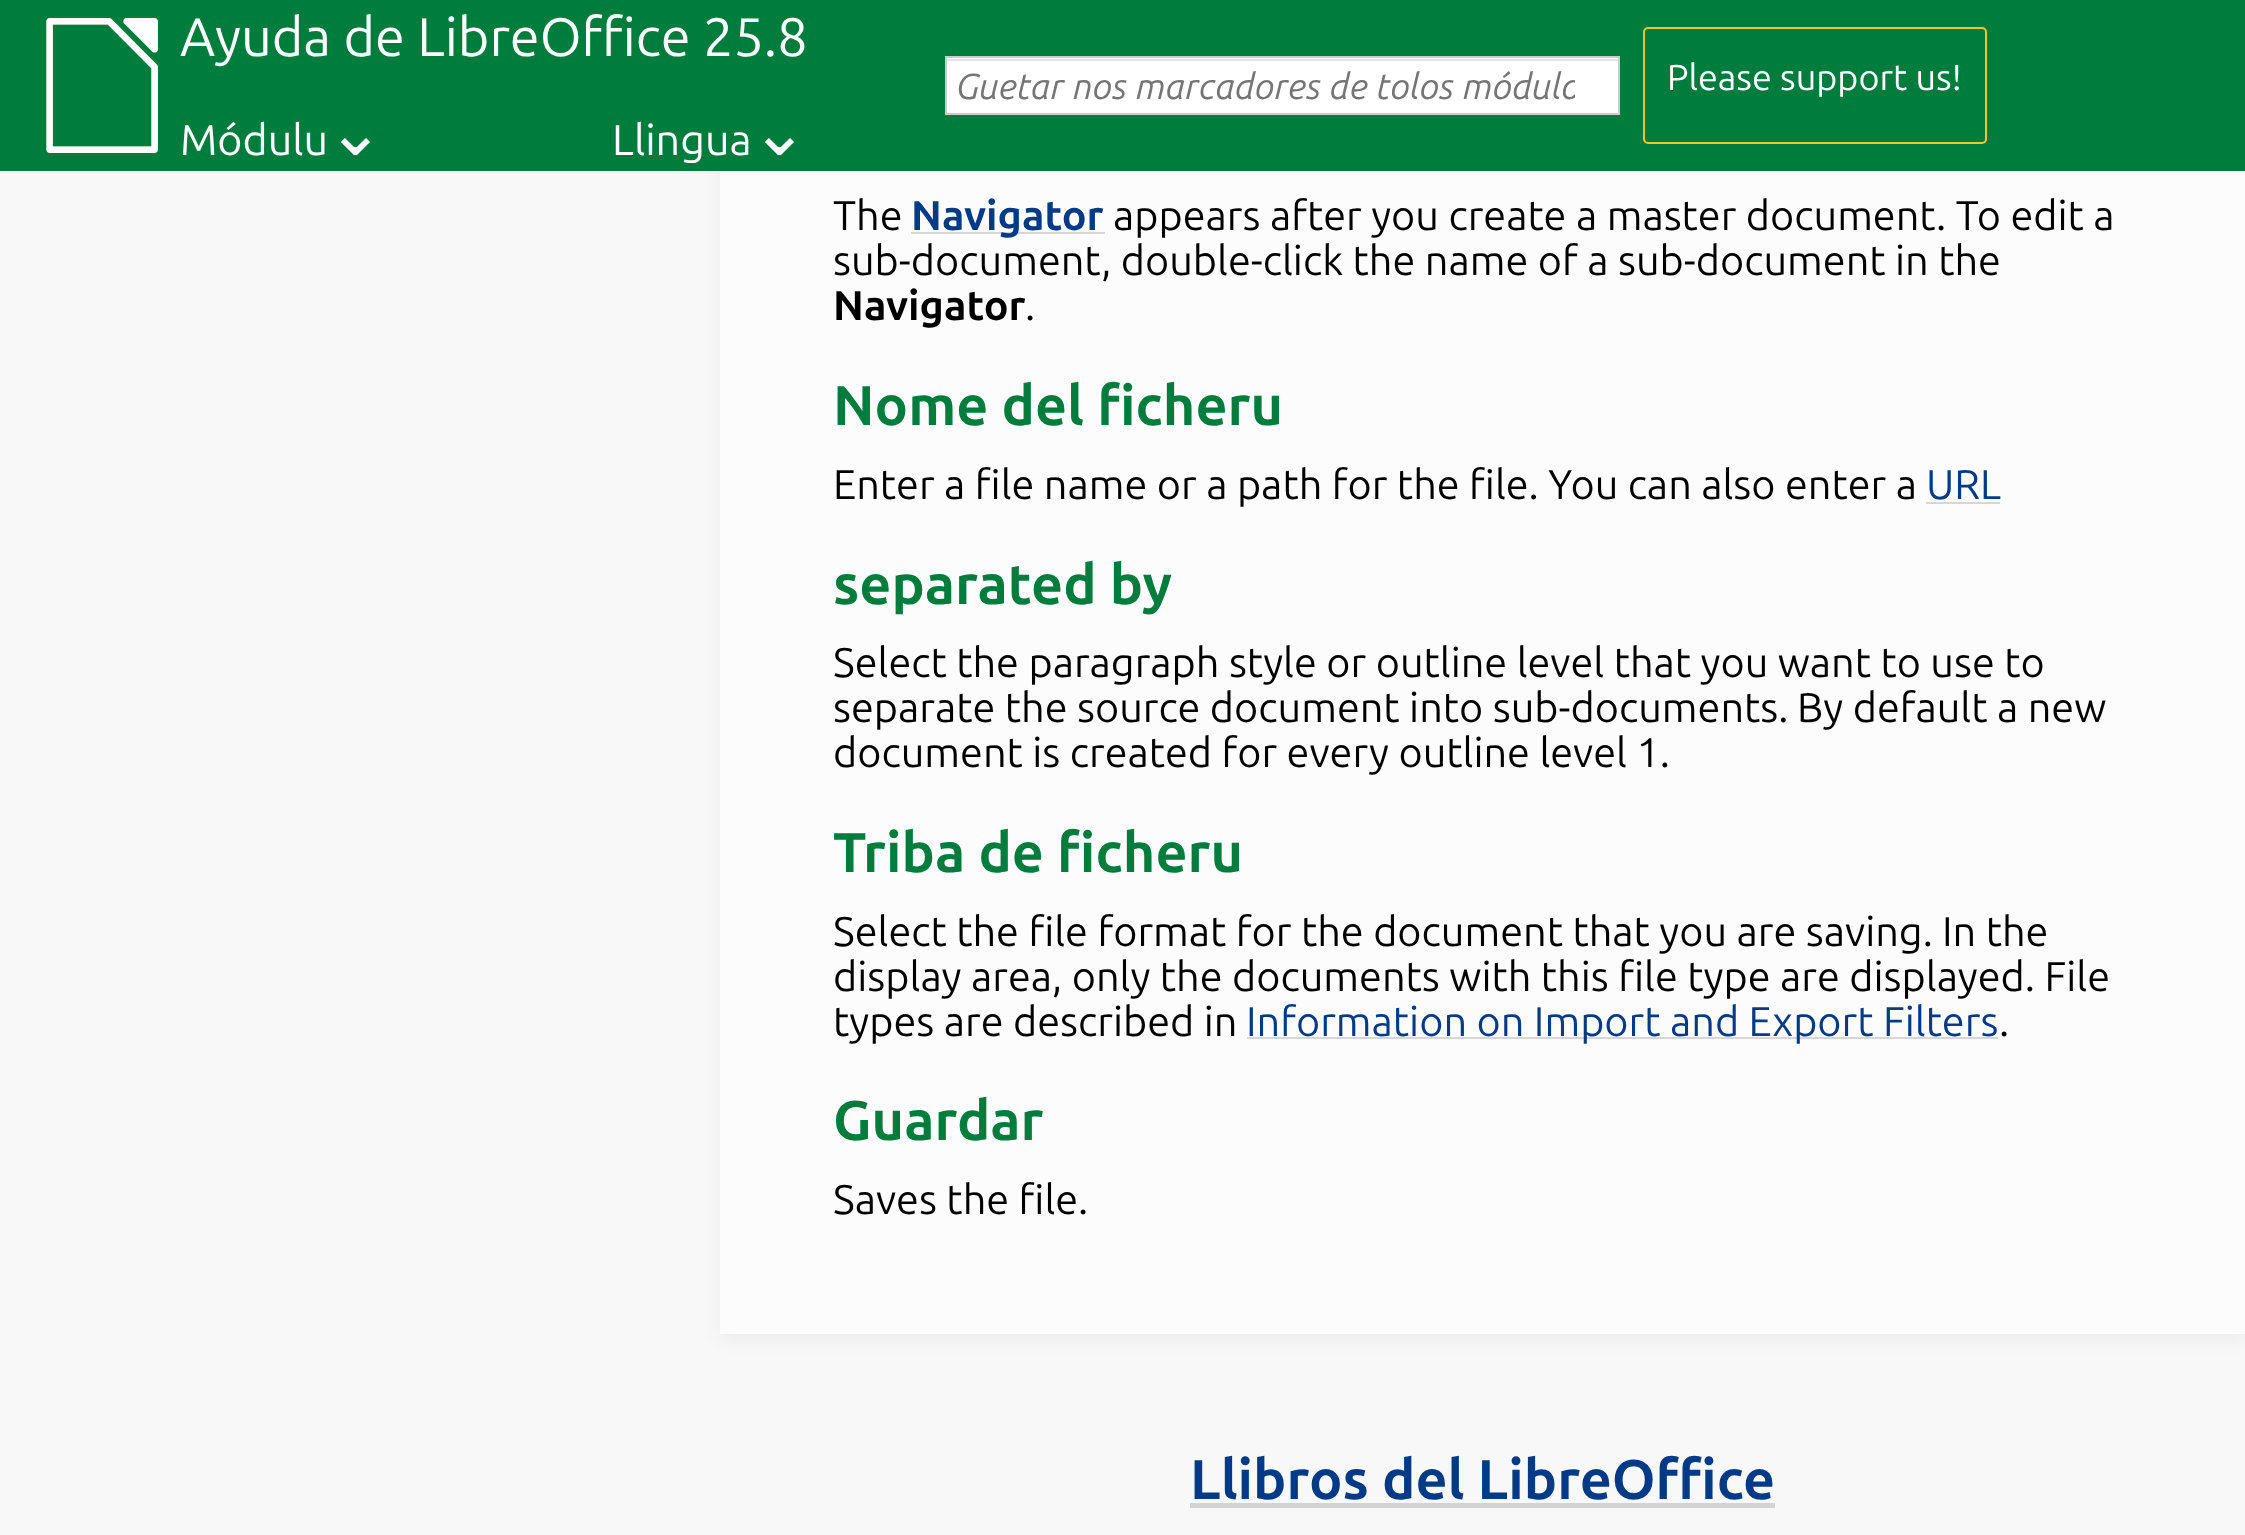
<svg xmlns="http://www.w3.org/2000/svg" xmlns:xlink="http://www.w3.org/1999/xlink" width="2245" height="1535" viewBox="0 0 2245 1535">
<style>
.cls-1{font:54px Ubuntu;fill:#ffffff}
.cls-2{font:43px Ubuntu;fill:#ffffff}
.cls-3{font:68px DejaVu Sans;fill:#ffffff}
.cls-4{font:italic 36px Ubuntu;fill:#757575}
.cls-5{font:36px Ubuntu;fill:#ffffff}
.cls-6{font:41.4px Ubuntu;fill:#000000}
.cls-7{font:bold 41.4px Ubuntu;fill:#023a86}
.cls-8{font:bold 41.4px Ubuntu;fill:#000000}
.cls-9{font:bold 55.75px Ubuntu;fill:#007c3c}
.cls-10{font:41.4px Ubuntu;fill:#023a86}
.cls-11{font:bold 55.75px Ubuntu;fill:#023a86}
</style>
<defs>
<clipPath id="clip1"><rect x="956" y="65" width="619" height="41"/></clipPath>
</defs>
<rect width="100%" height="100%" fill="#f7f8f7"/>
<rect fill="#000000" fill-opacity="0.05" filter="blur(9px)" x="720" y="-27" width="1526" height="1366"/>
<rect fill="#007c3c" x="0" y="0" width="2245" height="171"/>
<image xlink:href="image0.png" x="46" y="18" width="112" height="135"/>
<rect fill="#ffffff" x="947" y="58" width="671" height="55"/>
<rect fill="#e6e6e6" x="947" y="59" width="671" height="2"/>
<rect fill="none" stroke="#cccccc" stroke-width="2" x="946" y="57" width="673" height="57"/>
<rect fill="none" stroke="#f1c62a" stroke-width="2" x="1644" y="28" width="342" height="115" rx="4"/>
<rect fill="#fcfcfc" x="720" y="171" width="1525" height="1163"/>
<rect fill="#d6d6d6" x="911" y="232" width="194" height="2"/>
<rect fill="#d6d6d6" x="1926" y="502" width="74" height="2"/>
<rect fill="#d6d6d6" x="1247" y="1037" width="751" height="2"/>
<rect fill="#d2d3d2" x="1190" y="1503" width="585" height="5"/>
<text class="cls-1" x="180" y="56">Ayuda de LibreOffice 25.8</text>
<text class="cls-2" x="180" y="155">Módulu</text>
<text class="cls-3" x="327" y="155">⌄</text>
<text class="cls-2" x="612" y="155">Llingua</text>
<text class="cls-3" x="751" y="155">⌄</text>
<g clip-path="url(#clip1)">
<text class="cls-4" x="956" y="99">Guetar nos marcadores de tolos módulo</text>
</g>
<text class="cls-5" x="1667" y="90">Please support us!</text>
<text class="cls-6" x="833" y="230">The</text>
<text class="cls-7" x="911" y="230">Navigator</text>
<text class="cls-6" x="1113" y="230">appears after you create a master document. To edit a</text>
<text class="cls-6" x="833" y="275">sub-document, double-click the name of a sub-document in the</text>
<text class="cls-8" x="833" y="320">Navigator</text>
<text class="cls-6" x="1025" y="320">.</text>
<text class="cls-9" x="833" y="425">Nome del ficheru</text>
<text class="cls-6" x="833" y="499">Enter a file name or a path for the file. You can also enter a</text>
<text class="cls-10" x="1926" y="499">URL</text>
<text class="cls-9" x="833" y="604">separated by</text>
<text class="cls-6"><tspan x="833" y="677">Select the paragraph style or outline level that you want to use to</tspan><tspan x="833" y="722">separate the source document into sub-documents.</tspan></text>
<text class="cls-6" x="1797" y="722">By default a new</text>
<text class="cls-6" x="833" y="767">document is created for every outline level 1.</text>
<text class="cls-9" x="833" y="872">Triba de ficheru</text>
<text class="cls-6" x="833" y="946">Select the file format for the document that you are saving.</text>
<text class="cls-6" x="1942" y="946">In the</text>
<text class="cls-6"><tspan x="833" y="991">display area, only the documents with this file type are displayed. File</tspan><tspan x="833" y="1036">types are described in</tspan></text>
<text class="cls-10" x="1246" y="1036">Information on Import and Export Filters</text>
<text class="cls-6" x="1999" y="1036">.</text>
<text class="cls-9" x="833" y="1140">Guardar</text>
<text class="cls-6" x="833" y="1214">Saves the file.</text>
<text class="cls-11" x="1190" y="1499">Llibros del LibreOffice</text>
</svg>
